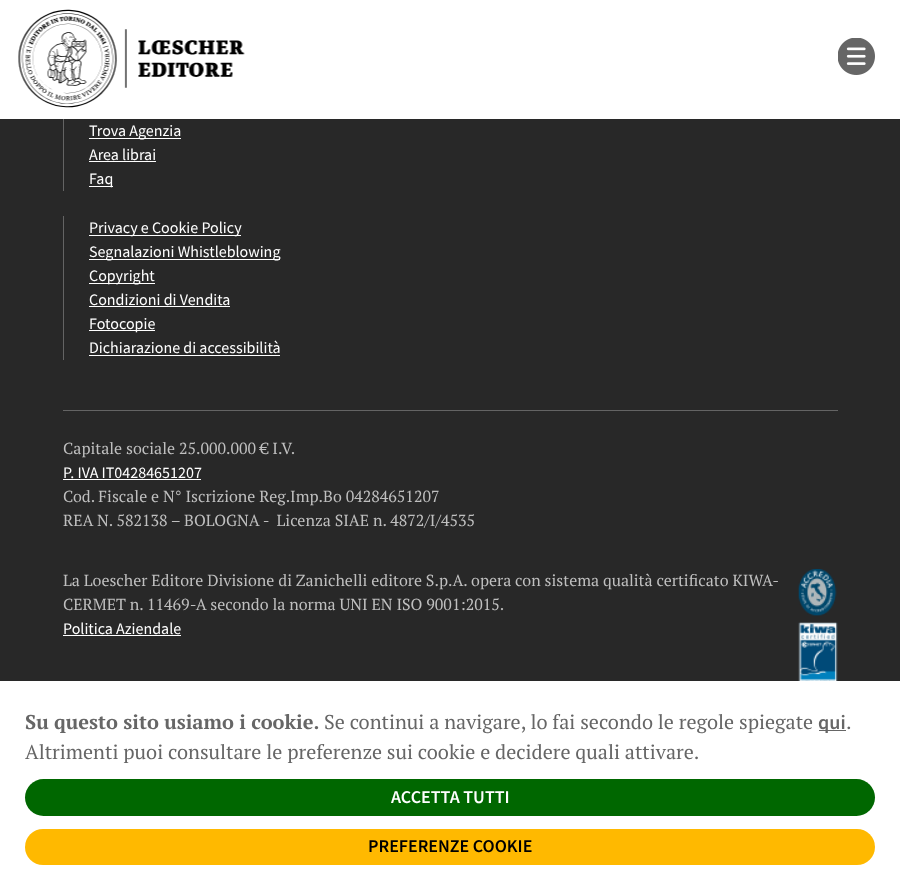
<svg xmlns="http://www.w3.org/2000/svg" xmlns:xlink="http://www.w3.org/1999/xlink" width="900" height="889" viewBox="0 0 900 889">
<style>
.cls-1{font:16px Source Sans Pro;fill:#ffffff}
.cls-2{font:16px PT Serif;fill:#bfbfbf}
.cls-3{font:bold 20px PT Serif;fill:#666666}
.cls-4{font:20px PT Serif;fill:#666666}
.cls-5{font:600 20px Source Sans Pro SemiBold;fill:#666666}
.cls-6{font:600 18px Source Sans Pro SemiBold;fill:#ffffff}
.cls-7{font:600 18px Source Sans Pro SemiBold;fill:#000000}
</style>
<rect width="100%" height="100%" fill="#282828"/>
<rect fill="#ffffff" x="0" y="0" width="900" height="119"/>
<image xlink:href="image0.png" x="18" y="9" width="227" height="99"/>
<image xlink:href="image1.png" x="838" y="38" width="37" height="37"/>
<rect fill="#646464" x="63" y="119" width="1" height="72"/>
<rect fill="#ffffff" x="89" y="138" width="92" height="1"/>
<rect fill="#ffffff" x="89" y="161" width="67" height="1"/>
<rect fill="#ffffff" x="89" y="186" width="24" height="1"/>
<rect fill="#646464" x="63" y="216" width="1" height="144"/>
<rect fill="#ffffff" x="89" y="235" width="152" height="1"/>
<rect fill="#ffffff" x="89" y="259" width="191" height="1"/>
<rect fill="#ffffff" x="89" y="283" width="66" height="1"/>
<rect fill="#ffffff" x="89" y="306" width="141" height="1"/>
<rect fill="#ffffff" x="89" y="330" width="66" height="1"/>
<rect fill="#ffffff" x="89" y="355" width="191" height="1"/>
<rect fill="#646464" x="63" y="410" width="775" height="1"/>
<rect fill="#ffffff" x="63" y="479" width="138" height="1"/>
<image xlink:href="image2.png" x="798" y="569" width="40" height="112"/>
<rect fill="#ffffff" x="63" y="635" width="118" height="1"/>
<rect fill="#ffffff" x="0" y="681" width="900" height="208"/>
<rect fill="#666666" x="819" y="730" width="27" height="1"/>
<rect fill="#006700" x="25" y="779" width="850" height="37" rx="18.5"/>
<rect fill="#ffb900" x="25" y="829" width="850" height="36" rx="18"/>
<text class="cls-1"><tspan x="89" y="136">Trova Agenzia</tspan><tspan x="89" y="160">Area librai</tspan><tspan x="89" y="184">Faq</tspan></text>
<text class="cls-1"><tspan x="89" y="233">Privacy e Cookie Policy</tspan><tspan x="89" y="257">Segnalazioni Whistleblowing</tspan><tspan x="89" y="281">Copyright</tspan><tspan x="89" y="305">Condizioni di Vendita</tspan><tspan x="89" y="329">Fotocopie</tspan><tspan x="89" y="353">Dichiarazione di accessibilità</tspan></text>
<text class="cls-2" x="63" y="454">Capitale sociale 25.000.000 € I.V.</text>
<text class="cls-1" x="63" y="478">P. IVA IT04284651207</text>
<text class="cls-2" xml:space="preserve"><tspan x="63" y="502">Cod. Fiscale e N° Iscrizione Reg.Imp.Bo 04284651207</tspan><tspan x="63" y="526">REA N. 582138 – BOLOGNA -  Licenza SIAE n. 4872/I/4535</tspan></text>
<text class="cls-2"><tspan x="63" y="586">La Loescher Editore Divisione di Zanichelli editore S.p.A. opera con sistema qualità certificato KIWA-</tspan><tspan x="63" y="610">CERMET n. 11469-A secondo la norma UNI EN ISO 9001:2015.</tspan></text>
<text class="cls-1" x="63" y="634">Politica Aziendale</text>
<text class="cls-3" x="25" y="729">Su questo sito usiamo i cookie.</text>
<text class="cls-4" x="324" y="729">Se continui a navigare, lo fai secondo le regole spiegate</text>
<text class="cls-5" x="818" y="729">qui</text>
<text class="cls-4" x="846" y="729">.</text>
<text class="cls-4" x="25" y="759">Altrimenti puoi consultare le preferenze sui cookie e decidere quali attivare.</text>
<text class="cls-6" x="391" y="803">ACCETTA TUTTI</text>
<text class="cls-7" x="368" y="852">PREFERENZE COOKIE</text>
</svg>
